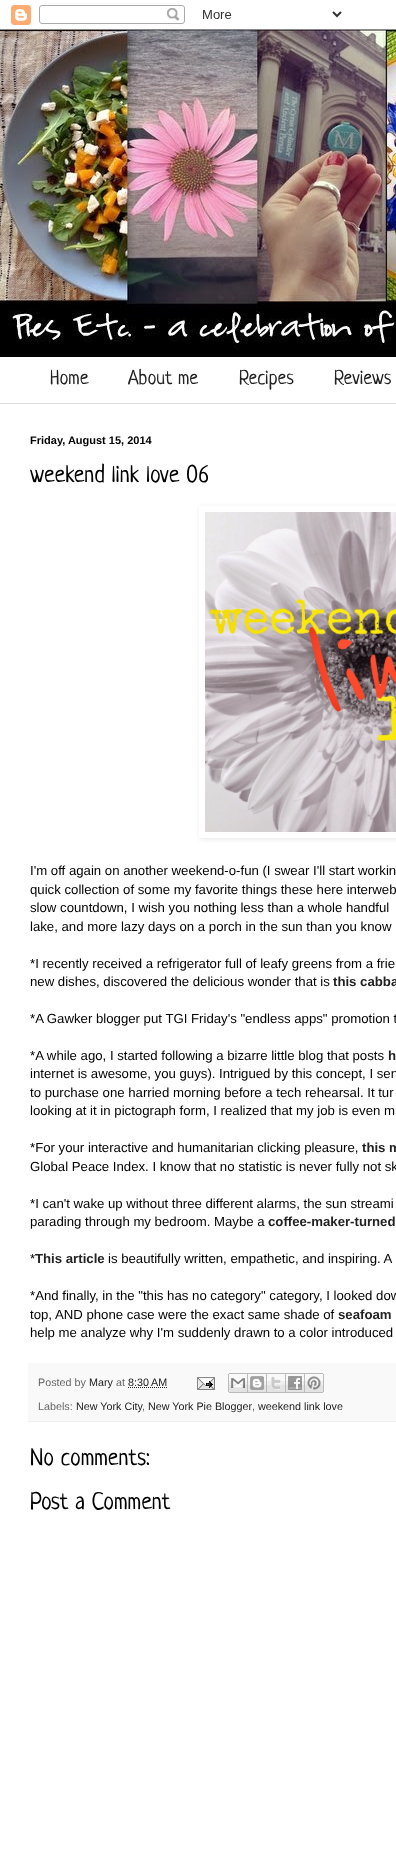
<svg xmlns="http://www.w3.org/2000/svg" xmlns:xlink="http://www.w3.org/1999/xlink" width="396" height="1854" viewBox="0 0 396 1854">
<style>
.cls-1{font:20px Neucha;fill:#222222}
.cls-2{font:bold 11px Liberation Sans;fill:#000000}
.cls-3{font:24px Neucha;fill:#000000}
.cls-4{font:13.2px Liberation Sans;fill:#000000}
.cls-5{font:bold 13.2px Liberation Sans;fill:#222222}
.cls-6{font:10.75px Liberation Sans;fill:#666666}
.cls-7{font:10.75px Liberation Sans;fill:#222222}
</style>
<defs>
<clipPath id="clip1"><path d="M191 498H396V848H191ZM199 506H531V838H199Z" clip-rule="evenodd"/></clipPath>
</defs>
<rect width="100%" height="100%" fill="#ffffff"/>
<image xlink:href="image0.png" x="0" y="5" width="396" height="25"/>
<image xlink:href="image1.png" x="0" y="30" width="396" height="327"/>
<rect fill="#dddddd" x="0" y="403" width="396" height="1"/>
<g clip-path="url(#clip1)">
<rect fill="#000000" fill-opacity="0.1" filter="blur(2.5px)" x="200" y="507" width="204" height="332"/>
</g>
<image xlink:href="image2.png" x="205" y="512" width="191" height="320"/>
<rect fill="#f9f9f9" x="28" y="1363" width="368" height="58"/>
<rect fill="#eeeeee" x="28" y="1421" width="368" height="1"/>
<path fill="none" stroke="#222222" stroke-dasharray="1 1" d="M128 1387.5H167.5"/>
<image xlink:href="image3.png" x="197" y="1377" width="18" height="13"/>
<image xlink:href="image4.png" x="228" y="1373" width="20" height="20"/>
<image xlink:href="image5.png" x="248" y="1373" width="19" height="20"/>
<image xlink:href="image6.png" x="267" y="1373" width="19" height="20"/>
<image xlink:href="image7.png" x="286" y="1373" width="19" height="20"/>
<image xlink:href="image8.png" x="305" y="1373" width="19" height="20"/>
<text class="cls-1" x="50" y="384">Home</text>
<text class="cls-1" x="128" y="384">About me</text>
<text class="cls-1" x="239" y="384">Recipes</text>
<text class="cls-1" x="334" y="384">Reviews</text>
<text class="cls-2" x="30" y="444">Friday, August 15, 2014</text>
<text class="cls-3" x="30" y="482">weekend link love 06</text>
<text class="cls-4"><tspan x="30" y="875">I'm off again on another weekend-o-fun (I swear I'll start workin</tspan><tspan x="30" y="894">quick collection of some my favorite things these here interweb</tspan><tspan x="30" y="912">slow countdown, I wish you nothing less than a whole handful</tspan><tspan x="30" y="931">lake, and more lazy days on a porch in the sun than you know</tspan></text>
<text class="cls-4"><tspan x="30" y="968">*I recently received a refrigerator full of leafy greens from a frie</tspan><tspan x="30" y="986">new dishes, discovered the delicious wonder that is</tspan></text>
<text class="cls-5" x="333" y="986">this cabba</text>
<text class="cls-4" x="30" y="1023">*A Gawker blogger put TGI Friday's "endless apps" promotion t</text>
<text class="cls-4" x="30" y="1060">*A while ago, I started following a bizarre little blog that posts</text>
<text class="cls-5" x="388" y="1060">h</text>
<text class="cls-4"><tspan x="30" y="1078">internet is awesome, you guys). Intrigued by this concept, I sen</tspan><tspan x="30" y="1097">to purchase one harried morning before a tech rehearsal. It tur</tspan><tspan x="30" y="1115">looking at it in pictograph form, I realized that my job is even m</tspan></text>
<text class="cls-4" x="30" y="1152">*For your interactive and humanitarian clicking pleasure,</text>
<text class="cls-5" x="362" y="1152">this m</text>
<text class="cls-4" x="30" y="1171">Global Peace Index. I know that no statistic is never fully not sk</text>
<text class="cls-4"><tspan x="30" y="1208">*I can't wake up without three different alarms, the sun streami</tspan><tspan x="30" y="1226">parading through my bedroom. Maybe a</tspan></text>
<text class="cls-5" x="268" y="1226">coffee-maker-turned</text>
<text class="cls-4" x="30" y="1263">*</text>
<text class="cls-5" x="35" y="1263">This article</text>
<text class="cls-4" x="108" y="1263">is beautifully written, empathetic, and inspiring. A</text>
<text class="cls-4"><tspan x="30" y="1300">*And finally, in the "this has no category" category, I looked dow</tspan><tspan x="30" y="1319">top, AND phone case were the exact same shade of</tspan></text>
<text class="cls-5" x="338" y="1319">seafoam</text>
<text class="cls-4" x="30" y="1337">help me analyze why I'm suddenly drawn to a color introduced</text>
<text class="cls-6" x="38" y="1386">Posted by</text>
<text class="cls-7" x="89" y="1386">Mary</text>
<text class="cls-6" x="116" y="1386">at</text>
<text class="cls-7" x="128" y="1386">8:30 AM</text>
<text class="cls-6" x="38" y="1410">Labels:</text>
<text class="cls-7" x="76" y="1410">New York City</text>
<text class="cls-6" x="142" y="1410">,</text>
<text class="cls-7" x="148" y="1410">New York Pie Blogger</text>
<text class="cls-6" x="252" y="1410">,</text>
<text class="cls-7" x="258" y="1410">weekend link love</text>
<text class="cls-3"><tspan x="30" y="1465">No comments:</tspan><tspan x="30" y="1509">Post a Comment</tspan></text>
</svg>
